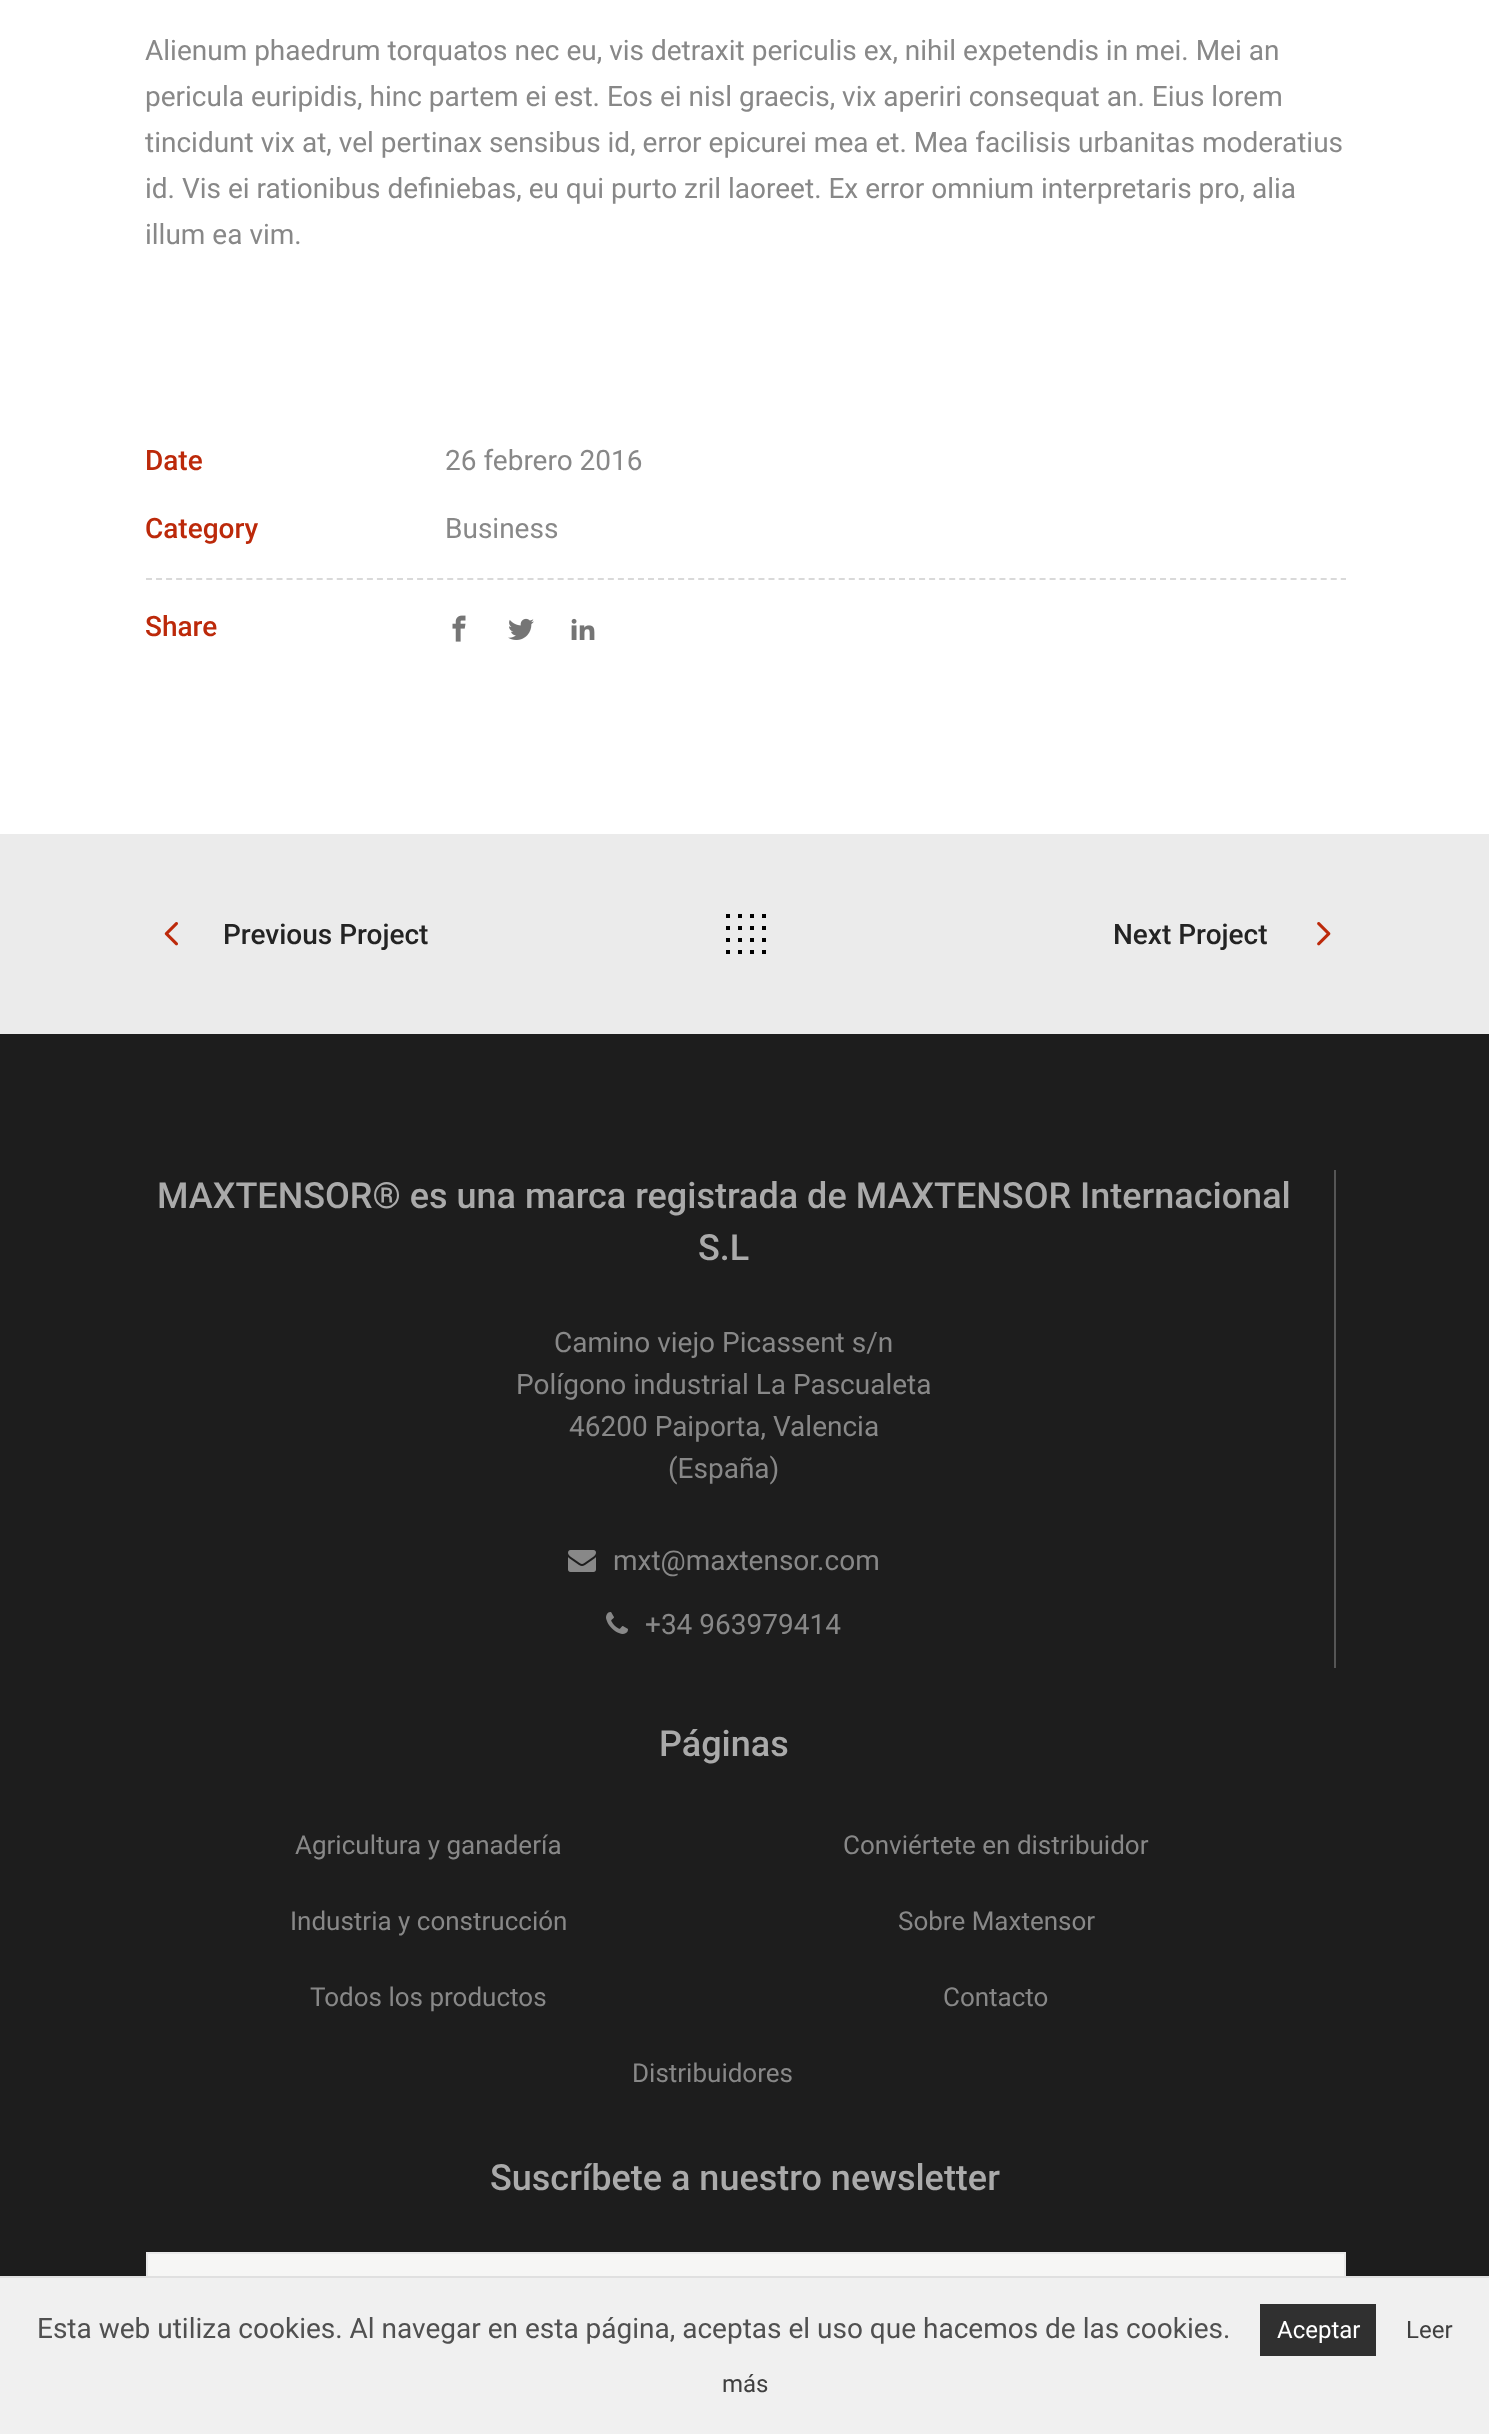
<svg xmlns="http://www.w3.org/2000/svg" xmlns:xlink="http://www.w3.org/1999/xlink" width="1489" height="2434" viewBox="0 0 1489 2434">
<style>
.cls-1{font:28px Roboto;fill:#888888}
.cls-2{font:500 28px Roboto;fill:#bc290a}
.cls-3{font:500 28px Roboto;fill:#232323}
.cls-4{font:500 36px Roboto;fill:#aaaaaa}
.cls-5{font:26px Roboto;fill:#888888}
.cls-6{font:28px Roboto;fill:#505050}
.cls-7{font:24px Roboto;fill:#ffffff}
.cls-8{font:24px Roboto;fill:#404040}
</style>
<rect width="100%" height="100%" fill="#ffffff"/>
<path fill="none" stroke="#d9d9d9" stroke-width="2" stroke-dasharray="6 4.04" d="M146 579H1346"/>
<image xlink:href="image0.png" x="452" y="615" width="14" height="27"/>
<image xlink:href="image1.png" x="508" y="618" width="26" height="22"/>
<image xlink:href="image2.png" x="571" y="618" width="24" height="22"/>
<rect fill="#ebebeb" x="0" y="834" width="1489" height="200"/>
<image xlink:href="image3.png" x="164" y="922" width="14" height="24"/>
<rect fill="#000000" x="726" y="914" width="4" height="4"/>
<rect fill="#000000" x="738" y="914" width="4" height="4"/>
<rect fill="#000000" x="750" y="914" width="4" height="4"/>
<rect fill="#000000" x="762" y="914" width="4" height="4"/>
<rect fill="#000000" x="726" y="926" width="4" height="4"/>
<rect fill="#000000" x="738" y="926" width="4" height="4"/>
<rect fill="#000000" x="750" y="926" width="4" height="4"/>
<rect fill="#000000" x="762" y="926" width="4" height="4"/>
<rect fill="#000000" x="726" y="938" width="4" height="4"/>
<rect fill="#000000" x="738" y="938" width="4" height="4"/>
<rect fill="#000000" x="750" y="938" width="4" height="4"/>
<rect fill="#000000" x="762" y="938" width="4" height="4"/>
<rect fill="#000000" x="726" y="950" width="4" height="4"/>
<rect fill="#000000" x="738" y="950" width="4" height="4"/>
<rect fill="#000000" x="750" y="950" width="4" height="4"/>
<rect fill="#000000" x="762" y="950" width="4" height="4"/>
<image xlink:href="image4.png" x="1317" y="922" width="14" height="24"/>
<rect fill="#1d1d1d" x="0" y="1034" width="1489" height="1242"/>
<rect fill="#555555" x="1334" y="1170" width="2" height="498"/>
<image xlink:href="image5.png" x="568" y="1550" width="28" height="22"/>
<image xlink:href="image6.png" x="606" y="1612" width="22" height="22"/>
<rect fill="#f6f6f5" x="148" y="2254" width="1196" height="22"/>
<rect fill="none" stroke="#e9e9e9" stroke-width="2" x="147" y="2253" width="1198" height="68"/>
<rect fill="#f0f0f0" x="0" y="2278" width="1489" height="156"/>
<rect fill="#e0e0e0" x="0" y="2276" width="1489" height="2"/>
<rect fill="#303030" x="1260" y="2304" width="116" height="52"/>
<text class="cls-1"><tspan x="145" y="60">Alienum phaedrum torquatos nec eu, vis detraxit periculis ex, nihil expetendis in mei. Mei an</tspan><tspan x="145" y="106">pericula euripidis, hinc partem ei est. Eos ei nisl graecis, vix aperiri consequat an. Eius lorem</tspan><tspan x="145" y="152">tincidunt vix at, vel pertinax sensibus id, error epicurei mea et. Mea facilisis urbanitas moderatius</tspan><tspan x="145" y="198">id. Vis ei rationibus definiebas, eu qui purto zril laoreet. Ex error omnium interpretaris pro, alia</tspan><tspan x="145" y="244">illum ea vim.</tspan></text>
<text class="cls-2" x="145" y="470">Date</text>
<text class="cls-1" x="445" y="470">26 febrero 2016</text>
<text class="cls-2" x="145" y="538">Category</text>
<text class="cls-1" x="445" y="538">Business</text>
<text class="cls-2" x="145" y="636">Share</text>
<text class="cls-3" x="223" y="944">Previous Project</text>
<text class="cls-3" x="1113" y="944">Next Project</text>
<text class="cls-4" x="157" y="1208">MAXTENSOR® es una marca registrada de MAXTENSOR Internacional</text>
<text class="cls-4" x="698" y="1260">S.L</text>
<text class="cls-1" x="554" y="1352">Camino viejo Picassent s/n</text>
<text class="cls-1" x="516" y="1394">Polígono industrial La Pascualeta</text>
<text class="cls-1" x="569" y="1436">46200 Paiporta, Valencia</text>
<text class="cls-1" x="668" y="1478">(España)</text>
<text class="cls-1" x="613" y="1570">mxt@maxtensor.com</text>
<text class="cls-1" x="645" y="1634">+34 963979414</text>
<text class="cls-4" x="659" y="1756">Páginas</text>
<text class="cls-5" x="295" y="1854">Agricultura y ganadería</text>
<text class="cls-5" x="843" y="1854">Conviértete en distribuidor</text>
<text class="cls-5" x="290" y="1930">Industria y construcción</text>
<text class="cls-5" x="898" y="1930">Sobre Maxtensor</text>
<text class="cls-5" x="310" y="2006">Todos los productos</text>
<text class="cls-5" x="943" y="2006">Contacto</text>
<text class="cls-5" x="632" y="2082">Distribuidores</text>
<text class="cls-4" x="490" y="2190">Suscríbete a nuestro newsletter</text>
<text class="cls-6" x="37" y="2338">Esta web utiliza cookies. Al navegar en esta página, aceptas el uso que hacemos de las cookies.</text>
<text class="cls-7" x="1277" y="2338">Aceptar</text>
<text class="cls-8" x="1406" y="2338">Leer</text>
<text class="cls-8" x="722" y="2392">más</text>
</svg>
